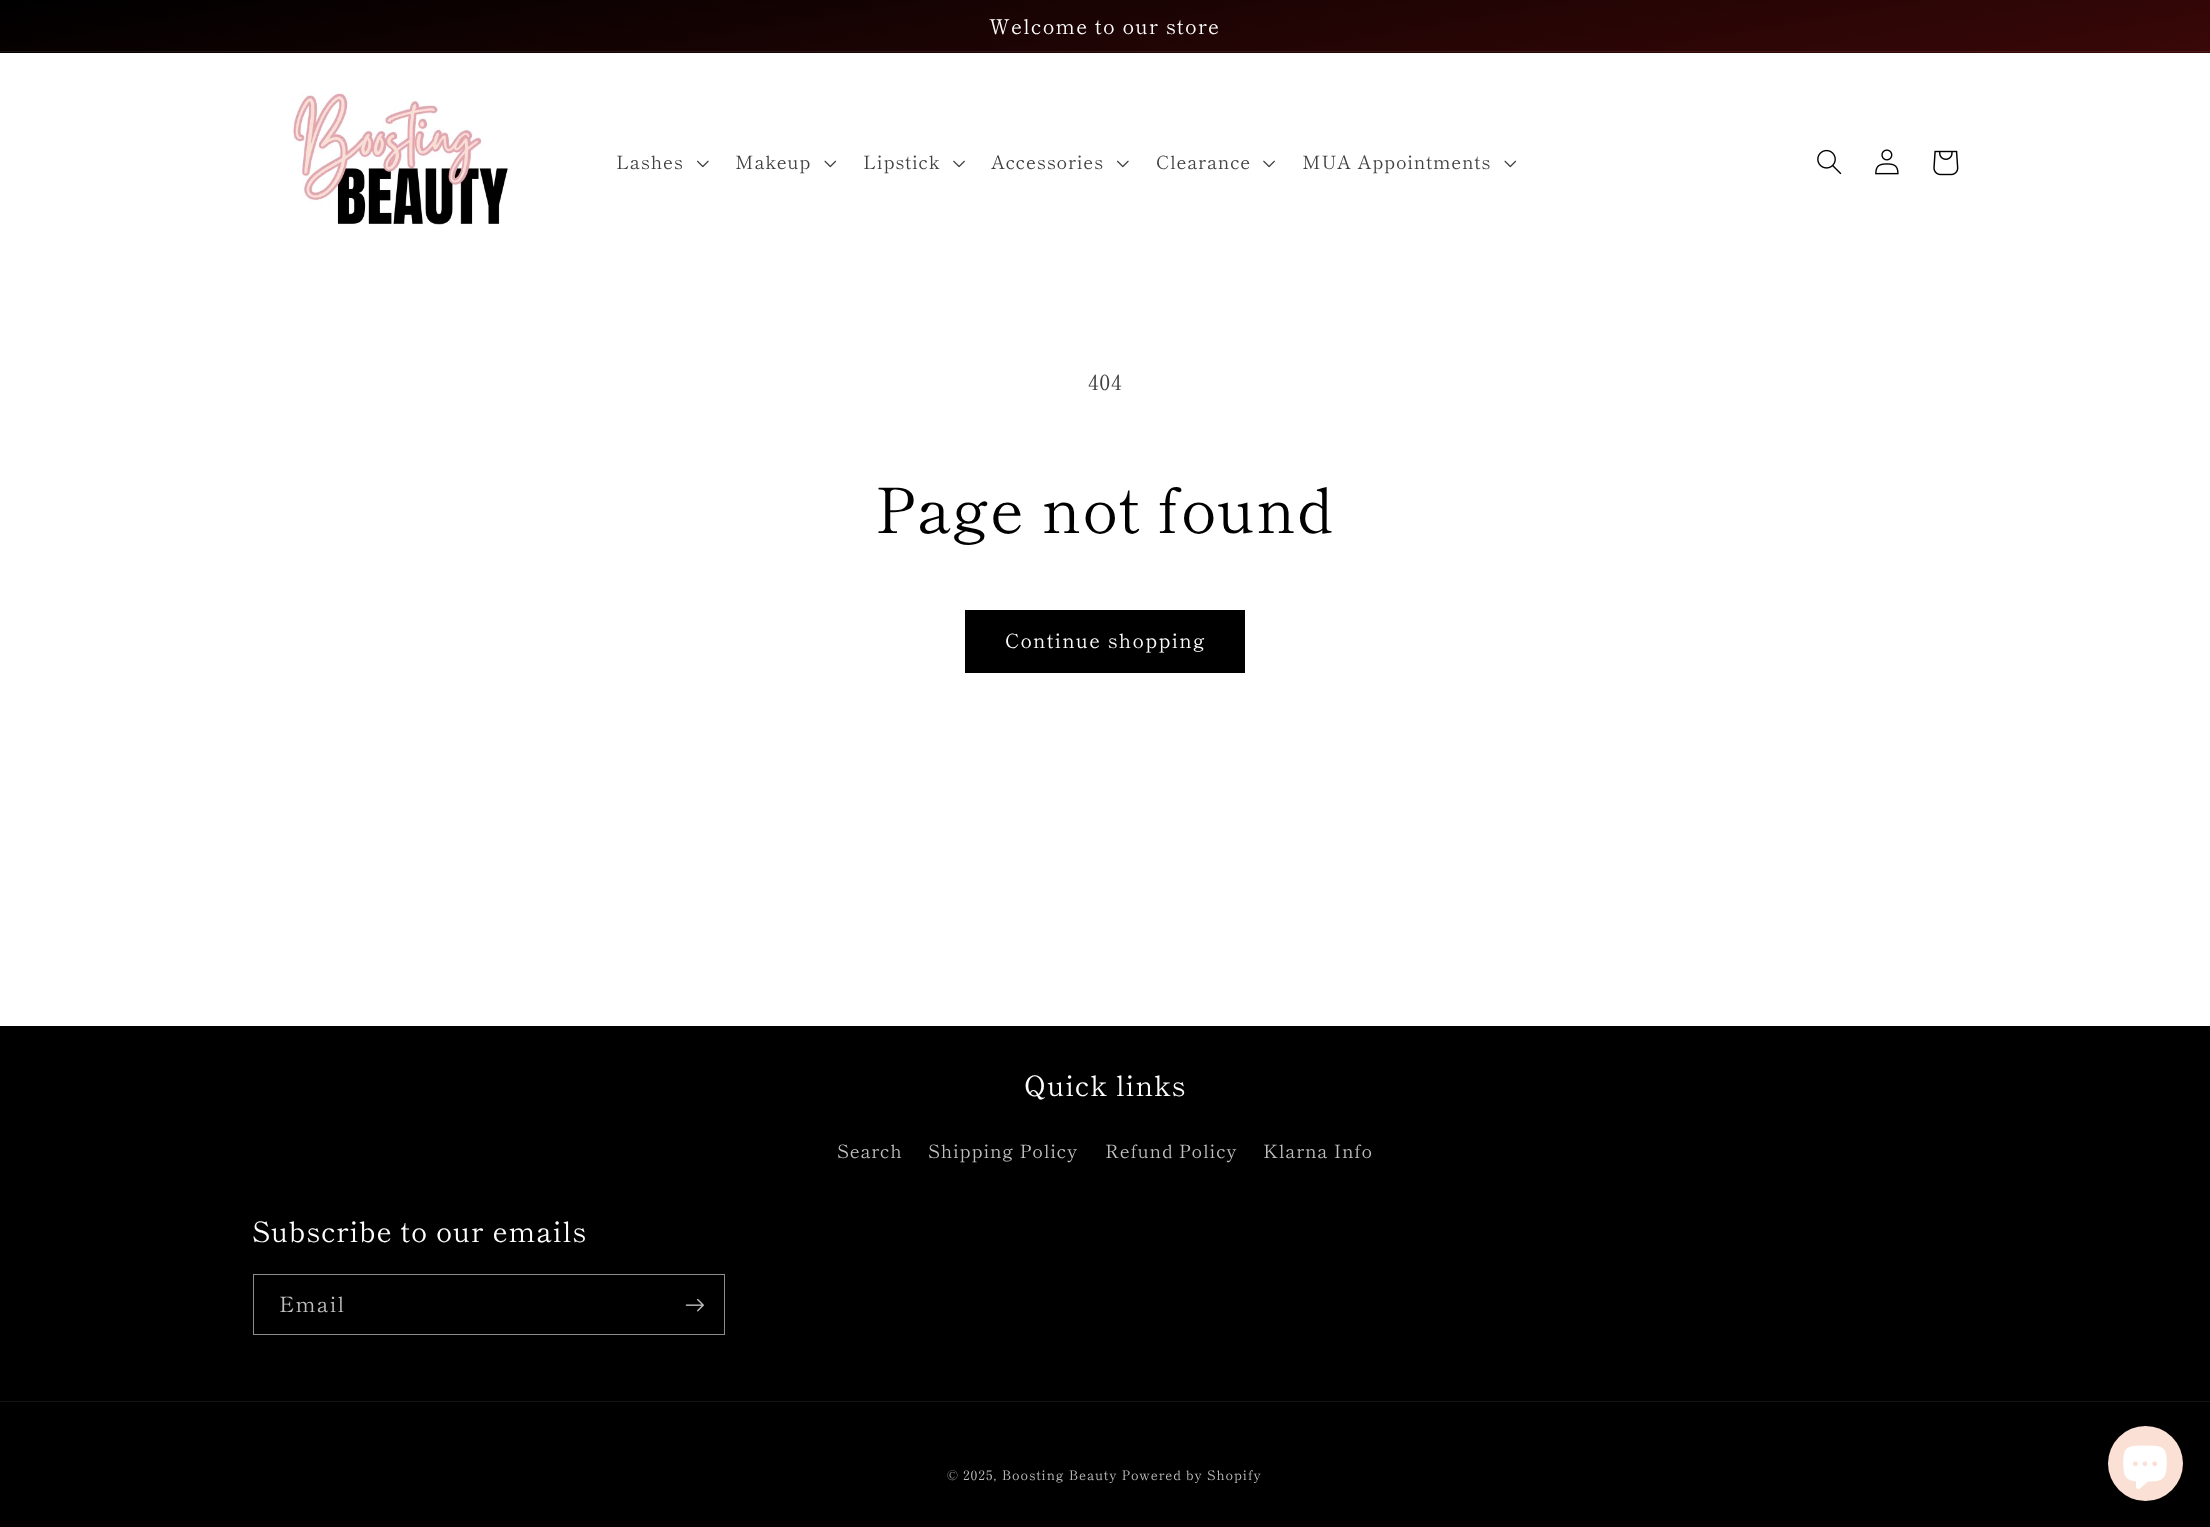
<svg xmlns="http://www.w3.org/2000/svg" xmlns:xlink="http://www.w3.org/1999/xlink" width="2210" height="1527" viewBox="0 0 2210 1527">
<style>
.cls-1{font:20.25px Shippori Mincho;letter-spacing:1.3px;fill:#ffffff}
.cls-2{font:18.4px Shippori Mincho;letter-spacing:0.75px;fill:#404040}
.cls-3{font:21px Shippori Mincho;letter-spacing:0.75px;fill:#404040}
.cls-4{font:62.5px Shippori Mincho;letter-spacing:0.9px;fill:#000000}
.cls-5{font:19.75px Shippori Mincho;letter-spacing:1.3px;fill:#ffffff}
.cls-6{font:28.1px Shippori Mincho;letter-spacing:0.9px;fill:#ffffff}
.cls-7{font:18.4px Shippori Mincho;letter-spacing:0.75px;fill:#bfbfbf}
.cls-8{font:21px Shippori Mincho;letter-spacing:1.3px;fill:#bfbfbf}
.cls-9{font:13.1px Shippori Mincho;letter-spacing:0.9px;fill:#bfbfbf}
</style>
<defs>
<linearGradient id="g1" gradientUnits="userSpaceOnUse" x1="941" y1="-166" x2="1269" y2="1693"><stop offset="0" stop-color="#000000"/><stop offset="1" stop-color="#f92020"/></linearGradient>
<linearGradient id="g2" gradientUnits="userSpaceOnUse" x1="941" y1="-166" x2="1269" y2="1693"><stop offset="0" stop-color="#141414"/><stop offset="1" stop-color="#f93232"/></linearGradient>
</defs>
<rect width="100%" height="100%" fill="#ffffff"/>
<rect fill="url(#g1)" x="0" y="0" width="2210" height="53"/>
<rect fill="url(#g2)" x="0" y="51" width="2210" height="1"/>
<image xlink:href="image0.png" x="292" y="92" width="216" height="134"/>
<image xlink:href="image1.png" x="697" y="160" width="12" height="8"/>
<image xlink:href="image2.png" x="824" y="160" width="12" height="8"/>
<image xlink:href="image3.png" x="953" y="160" width="12" height="8"/>
<image xlink:href="image1.png" x="1117" y="160" width="12" height="8"/>
<image xlink:href="image3.png" x="1263" y="160" width="12" height="8"/>
<image xlink:href="image2.png" x="1504" y="160" width="12" height="8"/>
<image xlink:href="image4.png" x="1817" y="149" width="25" height="26"/>
<image xlink:href="image5.png" x="1875" y="149" width="24" height="26"/>
<image xlink:href="image6.png" x="1933" y="150" width="26" height="26"/>
<rect fill="#000000" x="965" y="610" width="280" height="63"/>
<rect fill="#000000" x="0" y="1026" width="2210" height="501"/>
<rect fill="none" stroke="#8c8c8c" x="253.5" y="1274.5" width="471" height="60"/>
<image xlink:href="image7.png" x="685" y="1298" width="19" height="14"/>
<rect fill="#141414" x="0" y="1401" width="2210" height="1"/>
<circle fill="#fae0d5" cx="2145.5" cy="1463.5" r="37.5"/>
<image xlink:href="image8.png" x="2123" y="1445" width="44" height="44"/>
<text class="cls-1" x="989" y="34">Welcome to our store</text>
<text class="cls-2" x="616" y="169">Lashes</text>
<text class="cls-2" x="735" y="169">Makeup</text>
<text class="cls-2" x="863" y="169">Lipstick</text>
<text class="cls-2" x="991" y="169">Accessories</text>
<text class="cls-2" x="1156" y="169">Clearance</text>
<text class="cls-2" x="1302" y="169">MUA Appointments</text>
<text class="cls-3" x="1088" y="390">404</text>
<text class="cls-4" x="875" y="533">Page not found</text>
<text class="cls-5" x="1005" y="648">Continue shopping</text>
<text class="cls-6" x="1024" y="1096">Quick links</text>
<text class="cls-7" x="837" y="1158">Search</text>
<text class="cls-7" x="928" y="1158">Shipping Policy</text>
<text class="cls-7" x="1105" y="1158">Refund Policy</text>
<text class="cls-7" x="1263" y="1158">Klarna Info</text>
<text class="cls-6" x="252" y="1242">Subscribe to our emails</text>
<text class="cls-8" x="279" y="1312">Email</text>
<text class="cls-9" x="947" y="1480">© 2025, Boosting Beauty Powered by Shopify</text>
</svg>
